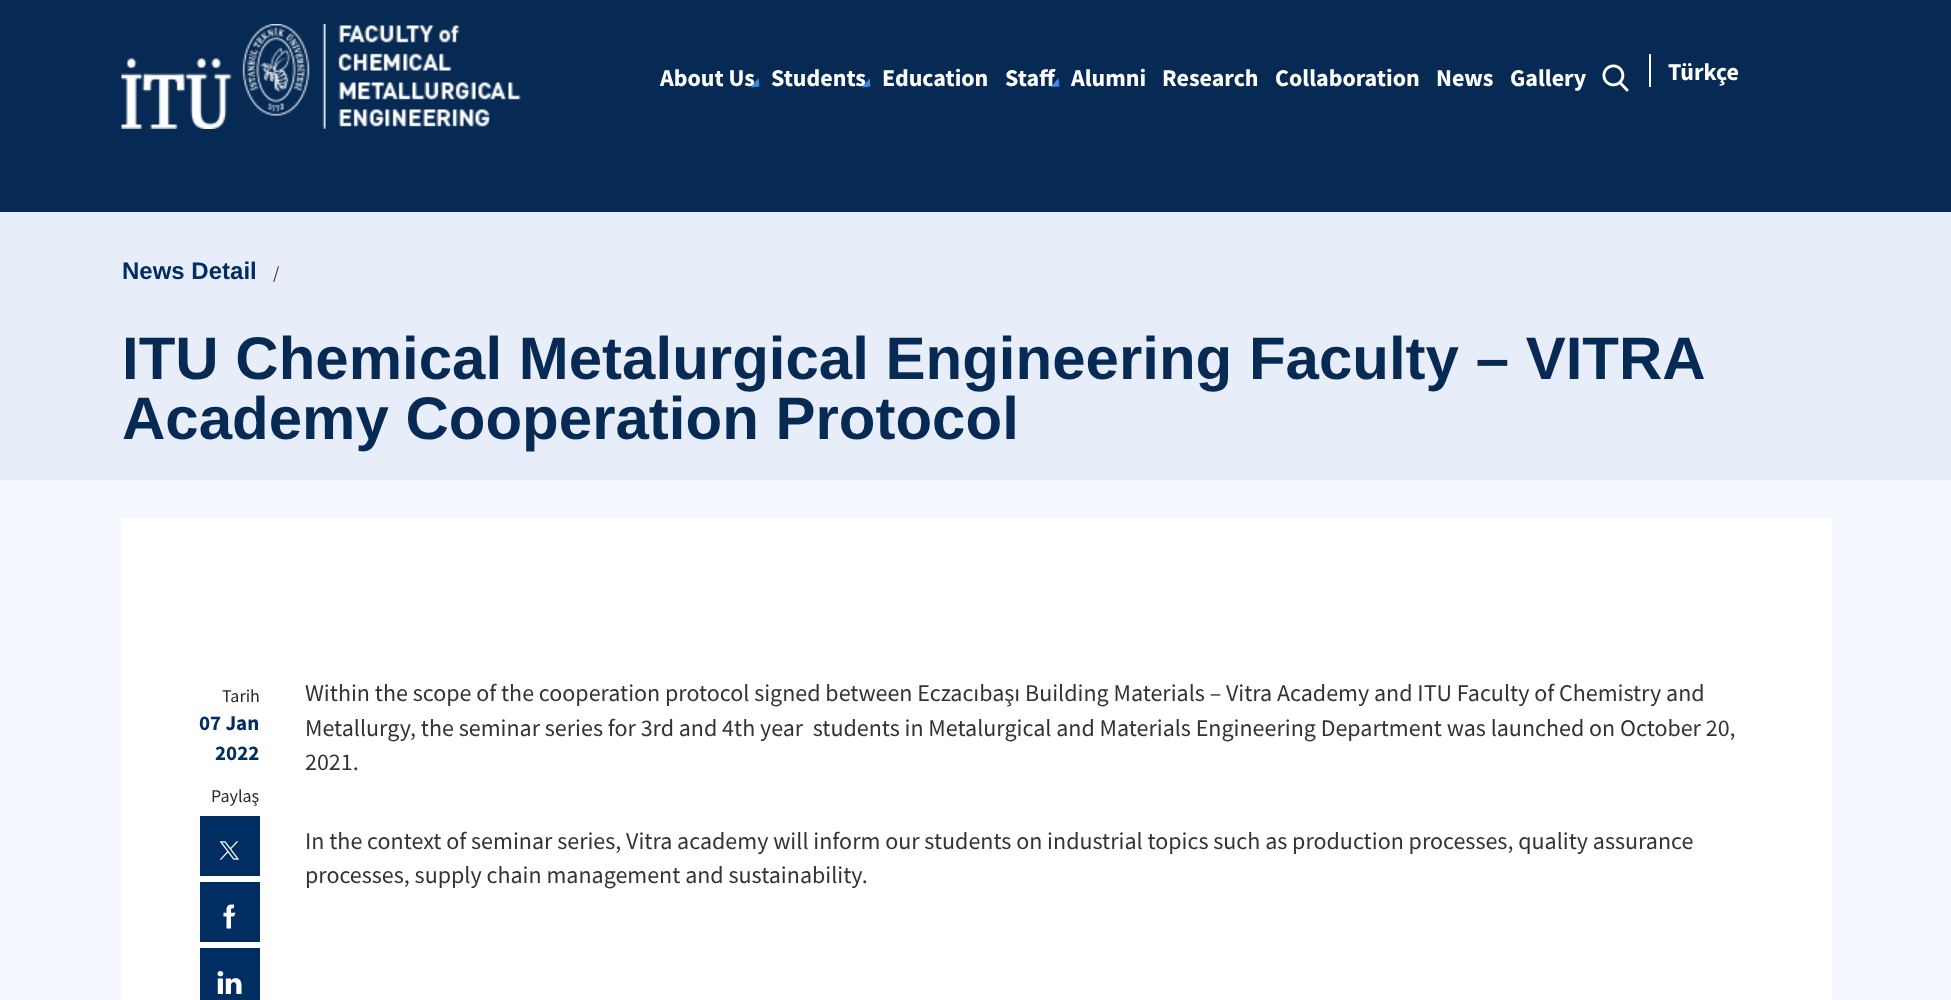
<svg xmlns="http://www.w3.org/2000/svg" xmlns:xlink="http://www.w3.org/1999/xlink" width="1951" height="1000" viewBox="0 0 1951 1000">
<style>
.cls-1{font:bold 24px Source Sans Pro;fill:#ffffff}
.cls-2{font:bold 24px Liberation Sans;fill:#002d62}
.cls-3{font:18px Source Sans Pro;fill:#333333}
.cls-4{font:bold 60px Liberation Sans;fill:#062a54}
.cls-5{font:18px Source Sans Pro;fill:#25292f}
.cls-6{font:bold 21px Source Sans Pro;fill:#002d62}
.cls-7{font:24px Source Sans Pro;fill:#333333}
</style>
<rect width="100%" height="100%" fill="#f5f8fe"/>
<rect fill="#062a54" x="0" y="0" width="1951" height="212"/>
<image xlink:href="image0.png" x="121" y="24" width="400" height="105"/>
<image xlink:href="image1.png" x="1602" y="64" width="27" height="28"/>
<rect fill="#ffffff" x="1649" y="54" width="2" height="33"/>
<rect fill="#e7edf9" x="0" y="212" width="1951" height="268"/>
<rect fill="#ffffff" x="122" y="518" width="1710" height="482"/>
<rect fill="#002d62" x="200" y="816" width="60" height="60"/>
<image xlink:href="image2.png" x="219" y="841" width="21" height="19"/>
<rect fill="#002d62" x="200" y="882" width="60" height="60"/>
<image xlink:href="image3.png" x="223" y="904" width="13" height="25"/>
<rect fill="#002d62" x="200" y="948" width="60" height="52"/>
<image xlink:href="image4.png" x="217" y="971" width="25" height="23"/>
<text class="cls-1" x="660" y="86">About Us</text>
<path fill="#3b8cea" d="M751 87.5L759.5 86.5L758.5 78Z"/>
<text class="cls-1" x="771" y="86">Students</text>
<path fill="#3b8cea" d="M862 87.5L870.5 86.5L869.5 78.5Z"/>
<text class="cls-1" x="882" y="86">Education</text>
<text class="cls-1" x="1005" y="86">Staff</text>
<path fill="#3b8cea" d="M1051 87L1059.5 86.5L1058.5 78Z"/>
<text class="cls-1" x="1071" y="86">Alumni</text>
<text class="cls-1" x="1162" y="86">Research</text>
<text class="cls-1" x="1275" y="86">Collaboration</text>
<text class="cls-1" x="1436" y="86">News</text>
<text class="cls-1" x="1510" y="86">Gallery</text>
<text class="cls-1" x="1668" y="80">Türkçe</text>
<text class="cls-2" x="122" y="279">News Detail</text>
<text class="cls-3" x="273" y="279">/</text>
<text class="cls-4"><tspan x="122" y="379">ITU Chemical Metalurgical Engineering Faculty – VITRA</tspan><tspan x="122" y="439">Academy Cooperation Protocol</tspan></text>
<text class="cls-5" x="222" y="702">Tarih</text>
<text class="cls-6" x="199" y="730">07 Jan</text>
<text class="cls-6" x="215" y="760">2022</text>
<text class="cls-5" x="211" y="802">Paylaş</text>
<text class="cls-7" xml:space="preserve"><tspan x="305" y="701">Within the scope of the cooperation protocol signed between Eczacıbaşı Building Materials – Vitra Academy and ITU Faculty of Chemistry and</tspan><tspan x="305" y="736">Metallurgy, the seminar series for 3rd and 4th year  students in Metalurgical and Materials Engineering Department was launched on October 20,</tspan><tspan x="305" y="770">2021.</tspan></text>
<text class="cls-7"><tspan x="305" y="849">In the context of seminar series, Vitra academy will inform our students on industrial topics such as production processes, quality assurance</tspan><tspan x="305" y="883">processes, supply chain management and sustainability.</tspan></text>
</svg>
